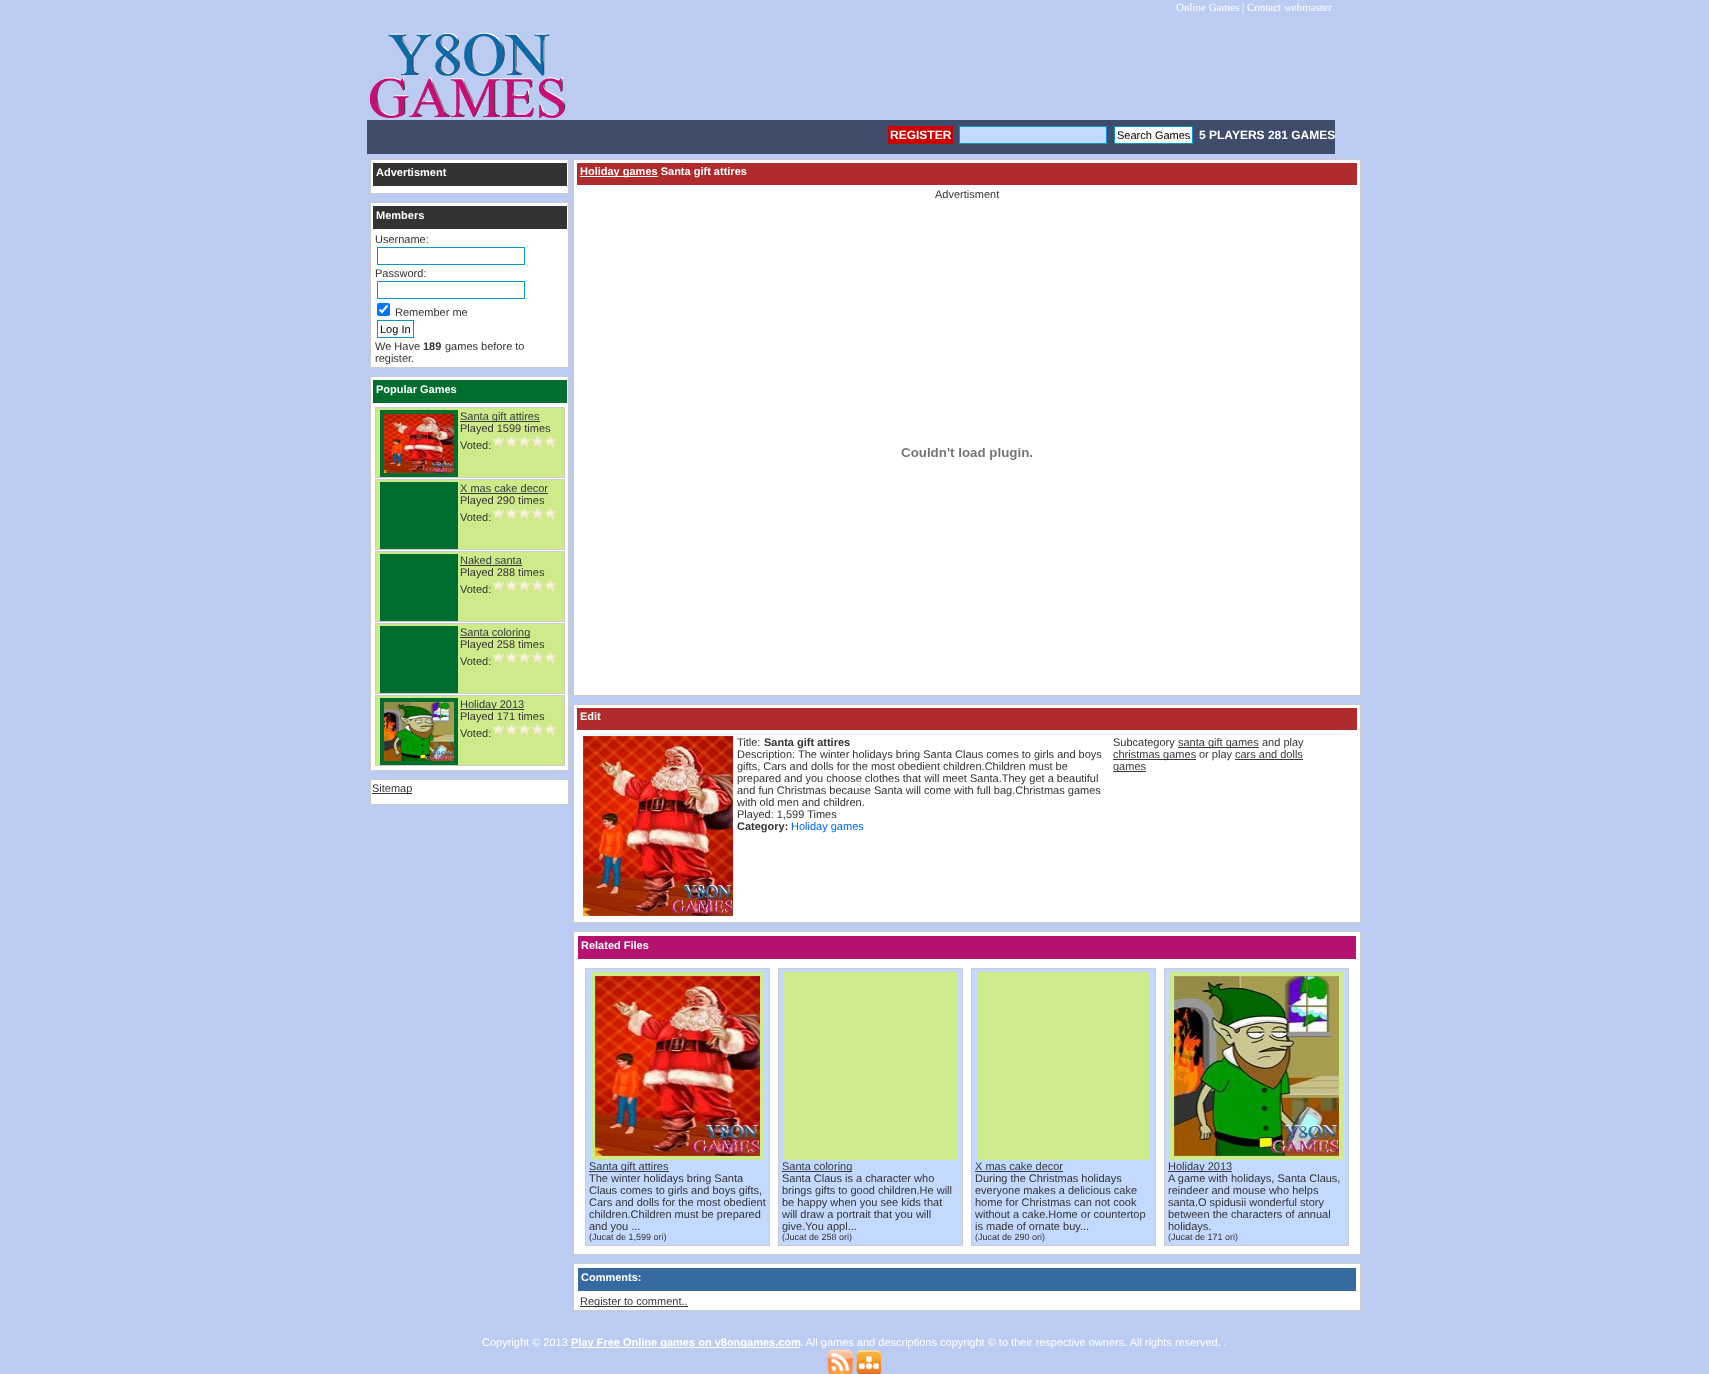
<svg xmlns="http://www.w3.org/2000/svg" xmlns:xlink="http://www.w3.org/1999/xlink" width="1709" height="1374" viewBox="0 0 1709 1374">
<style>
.cls-1{font:11px Liberation Serif;fill:#ffffff}
.cls-2{font:bold 12px Liberation Sans;fill:#ffffff}
.cls-3{font:11px Liberation Sans;fill:#000000}
.cls-4{font:bold 11px Liberation Sans;fill:#ffffff}
.cls-5{font:11px Liberation Sans;fill:#333333}
.cls-6{font:bold 11px Liberation Sans;fill:#333333}
.cls-7{font:11px Liberation Sans;fill:#36393d}
.cls-8{font:11px Liberation Sans;fill:#0066ff}
.cls-9{font:9px Liberation Sans;fill:#333333}
.cls-10{font:11px Liberation Sans;fill:#ffffff}
</style>
<rect width="100%" height="100%" fill="#bbcbf2"/>
<image xlink:href="image0.png" x="370" y="32" width="196" height="86"/>
<rect fill="#3f4c6b" x="367" y="120" width="968" height="34"/>
<rect fill="#cc0000" x="888" y="126" width="65" height="18"/>
<rect fill="#c3d9ff" stroke="#0099cc" x="959.5" y="126.5" width="147" height="17"/>
<rect fill="#ffffff" stroke="#0099cc" x="1114.5" y="126.5" width="78" height="17"/>
<rect fill="#ffffff" stroke="#cccccc" x="370.5" y="159.5" width="198" height="34"/>
<rect fill="#333333" x="373" y="163" width="194" height="23"/>
<rect fill="#ffffff" stroke="#cccccc" x="370.5" y="202.5" width="198" height="165"/>
<rect fill="#333333" x="373" y="206" width="194" height="23"/>
<rect fill="none" stroke="#0099cc" x="377.5" y="247.5" width="147" height="17"/>
<rect fill="none" stroke="#0099cc" x="377.5" y="281.5" width="147" height="17"/>
<rect fill="#0075ff" x="377" y="303" width="13" height="13" rx="2"/>
<path fill="none" stroke="#ffffff" stroke-width="2.1" d="M379.5 309.5L382 312L387.5 305.5"/>
<rect fill="none" stroke="#0099cc" x="377.5" y="320.5" width="36" height="17"/>
<rect fill="#ffffff" stroke="#cccccc" x="370.5" y="376.5" width="198" height="394"/>
<rect fill="#006e2e" x="373" y="380" width="194" height="23"/>
<rect fill="#cdeb8b" stroke="#cccccc" x="375.5" y="407.5" width="189" height="70"/>
<rect fill="#006e2e" x="380" y="410" width="78" height="67"/>
<image xlink:href="image1.png" x="384" y="414" width="70" height="59"/>
<rect fill="#36393d" x="460" y="421" width="80" height="1"/>
<image xlink:href="image2.png" x="493" y="436" width="63" height="11"/>
<rect fill="#cdeb8b" stroke="#cccccc" x="375.5" y="479.5" width="189" height="70"/>
<rect fill="#006e2e" x="380" y="482" width="78" height="67"/>
<rect fill="#36393d" x="460" y="493" width="88" height="1"/>
<image xlink:href="image2.png" x="493" y="508" width="63" height="11"/>
<rect fill="#cdeb8b" stroke="#cccccc" x="375.5" y="551.5" width="189" height="70"/>
<rect fill="#006e2e" x="380" y="554" width="78" height="67"/>
<rect fill="#36393d" x="460" y="565" width="62" height="1"/>
<image xlink:href="image2.png" x="493" y="580" width="63" height="11"/>
<rect fill="#cdeb8b" stroke="#cccccc" x="375.5" y="623.5" width="189" height="70"/>
<rect fill="#006e2e" x="380" y="626" width="78" height="67"/>
<rect fill="#36393d" x="460" y="637" width="70" height="1"/>
<image xlink:href="image2.png" x="493" y="652" width="63" height="11"/>
<rect fill="#cdeb8b" stroke="#cccccc" x="375.5" y="695.5" width="189" height="70"/>
<rect fill="#006e2e" x="380" y="698" width="78" height="67"/>
<image xlink:href="image3.png" x="384" y="702" width="70" height="59"/>
<rect fill="#36393d" x="460" y="709" width="64" height="1"/>
<image xlink:href="image2.png" x="493" y="724" width="63" height="11"/>
<rect fill="#ffffff" stroke="#cccccc" x="370.5" y="779.5" width="198" height="25"/>
<rect fill="#36393d" x="372" y="793" width="40" height="1"/>
<rect fill="#ffffff" stroke="#cccccc" x="573.5" y="159.5" width="787" height="536"/>
<rect fill="#b02b2c" x="577" y="163" width="780" height="22"/>
<rect fill="#ffffff" x="580" y="176" width="78" height="1"/>
<image xlink:href="image4.png" x="901" y="448" width="131" height="12"/>
<rect fill="#ffffff" stroke="#cccccc" x="573.5" y="704.5" width="787" height="218"/>
<rect fill="#b02b2c" x="577" y="708" width="780" height="22"/>
<image xlink:href="image5.png" x="583" y="736" width="150" height="180"/>
<rect fill="#36393d" x="1178" y="747" width="81" height="1"/>
<rect fill="#36393d" x="1113" y="759" width="83" height="1"/>
<rect fill="#36393d" x="1235" y="759" width="68" height="1"/>
<rect fill="#36393d" x="1113" y="771" width="33" height="1"/>
<rect fill="#ffffff" stroke="#cccccc" x="573.5" y="931.5" width="787" height="323"/>
<rect fill="#b4126e" x="578" y="936" width="778" height="23"/>
<rect fill="#c3d9ff" stroke="#cccccc" x="585.5" y="968.5" width="184" height="277"/>
<rect fill="#cdeb8b" x="591" y="972" width="173" height="188"/>
<image xlink:href="image6.png" x="595" y="976" width="165" height="180"/>
<rect fill="#36393d" x="589" y="1171" width="80" height="1"/>
<rect fill="#c3d9ff" stroke="#cccccc" x="778.5" y="968.5" width="184" height="277"/>
<rect fill="#cdeb8b" x="784" y="972" width="173" height="188"/>
<rect fill="#36393d" x="782" y="1171" width="70" height="1"/>
<rect fill="#c3d9ff" stroke="#cccccc" x="971.5" y="968.5" width="184" height="277"/>
<rect fill="#cdeb8b" x="977" y="972" width="173" height="188"/>
<rect fill="#36393d" x="975" y="1171" width="88" height="1"/>
<rect fill="#c3d9ff" stroke="#cccccc" x="1164.5" y="968.5" width="184" height="277"/>
<rect fill="#cdeb8b" x="1170" y="972" width="173" height="188"/>
<image xlink:href="image7.png" x="1174" y="976" width="165" height="180"/>
<rect fill="#36393d" x="1168" y="1171" width="64" height="1"/>
<rect fill="#ffffff" stroke="#cccccc" x="573.5" y="1263.5" width="787" height="47"/>
<rect fill="#356aa0" x="578" y="1268" width="778" height="23"/>
<rect fill="#36393d" x="580" y="1306" width="108" height="1"/>
<rect fill="#ffffff" x="571" y="1347" width="229" height="1"/>
<image xlink:href="image8.png" x="827" y="1349" width="27" height="25"/>
<image xlink:href="image9.png" x="856" y="1349" width="26" height="25"/>
<text class="cls-1" x="1176" y="11">Online Games | Contact webmaster</text>
<text class="cls-2" x="890" y="139">REGISTER</text>
<text class="cls-3" x="1117" y="139">Search Games</text>
<text class="cls-2" x="1199" y="139">5 PLAYERS 281 GAMES</text>
<text class="cls-4" x="376" y="176">Advertisment</text>
<text class="cls-4" x="376" y="219">Members</text>
<text class="cls-5" x="375" y="243">Username:</text>
<text class="cls-5" x="375" y="277">Password:</text>
<text class="cls-5" x="395" y="316">Remember me</text>
<text class="cls-3" x="380" y="333">Log In</text>
<text class="cls-5" x="375" y="350">We Have</text>
<text class="cls-6" x="423" y="350">189</text>
<text class="cls-5" x="445" y="350">games before to</text>
<text class="cls-5" x="375" y="362">register.</text>
<text class="cls-4" x="376" y="393">Popular Games</text>
<text class="cls-7" x="460" y="420">Santa gift attires</text>
<text class="cls-5"><tspan x="460" y="432">Played 1599 times</tspan><tspan x="460" y="449">Voted:</tspan></text>
<text class="cls-7" x="460" y="492">X mas cake decor</text>
<text class="cls-5"><tspan x="460" y="504">Played 290 times</tspan><tspan x="460" y="521">Voted:</tspan></text>
<text class="cls-7" x="460" y="564">Naked santa</text>
<text class="cls-5"><tspan x="460" y="576">Played 288 times</tspan><tspan x="460" y="593">Voted:</tspan></text>
<text class="cls-7" x="460" y="636">Santa coloring</text>
<text class="cls-5"><tspan x="460" y="648">Played 258 times</tspan><tspan x="460" y="665">Voted:</tspan></text>
<text class="cls-7" x="460" y="708">Holiday 2013</text>
<text class="cls-5"><tspan x="460" y="720">Played 171 times</tspan><tspan x="460" y="737">Voted:</tspan></text>
<text class="cls-7" x="372" y="792">Sitemap</text>
<text class="cls-4" x="580" y="175">Holiday games Santa gift attires</text>
<text class="cls-5" x="935" y="198">Advertisment</text>
<text class="cls-4" x="580" y="720">Edit</text>
<text class="cls-5" x="737" y="746">Title:</text>
<text class="cls-6" x="764" y="746">Santa gift attires</text>
<text class="cls-5"><tspan x="737" y="758">Description: The winter holidays bring Santa Claus comes to girls and boys</tspan><tspan x="737" y="770">gifts, Cars and dolls for the most obedient children.Children must be</tspan><tspan x="737" y="782">prepared and you choose clothes that will meet Santa.They get a beautiful</tspan><tspan x="737" y="794">and fun Christmas because Santa will come with full bag.Christmas games</tspan><tspan x="737" y="806">with old men and children.</tspan><tspan x="737" y="818">Played: 1,599 Times</tspan></text>
<text class="cls-6" x="737" y="830">Category:</text>
<text class="cls-8" x="791" y="830">Holiday games</text>
<text class="cls-5" x="1113" y="746">Subcategory</text>
<text class="cls-7" x="1178" y="746">santa gift games</text>
<text class="cls-5" x="1262" y="746">and play</text>
<text class="cls-7" x="1113" y="758">christmas games</text>
<text class="cls-5" x="1199" y="758">or play</text>
<text class="cls-7" x="1235" y="758">cars and dolls</text>
<text class="cls-7" x="1113" y="770">games</text>
<text class="cls-4" x="581" y="949">Related Files</text>
<text class="cls-7" x="589" y="1170">Santa gift attires</text>
<text class="cls-5"><tspan x="589" y="1182">The winter holidays bring Santa</tspan><tspan x="589" y="1194">Claus comes to girls and boys gifts,</tspan><tspan x="589" y="1206">Cars and dolls for the most obedient</tspan><tspan x="589" y="1218">children.Children must be prepared</tspan><tspan x="589" y="1230">and you ...</tspan></text>
<text class="cls-9" x="589" y="1240">(Jucat de 1,599 ori)</text>
<text class="cls-7" x="782" y="1170">Santa coloring</text>
<text class="cls-5"><tspan x="782" y="1182">Santa Claus is a character who</tspan><tspan x="782" y="1194">brings gifts to good children.He will</tspan><tspan x="782" y="1206">be happy when you see kids that</tspan><tspan x="782" y="1218">will draw a portrait that you will</tspan><tspan x="782" y="1230">give.You appl...</tspan></text>
<text class="cls-9" x="782" y="1240">(Jucat de 258 ori)</text>
<text class="cls-7" x="975" y="1170">X mas cake decor</text>
<text class="cls-5"><tspan x="975" y="1182">During the Christmas holidays</tspan><tspan x="975" y="1194">everyone makes a delicious cake</tspan><tspan x="975" y="1206">home for Christmas can not cook</tspan><tspan x="975" y="1218">without a cake.Home or countertop</tspan><tspan x="975" y="1230">is made of ornate buy...</tspan></text>
<text class="cls-9" x="975" y="1240">(Jucat de 290 ori)</text>
<text class="cls-7" x="1168" y="1170">Holiday 2013</text>
<text class="cls-5"><tspan x="1168" y="1182">A game with holidays, Santa Claus,</tspan><tspan x="1168" y="1194">reindeer and mouse who helps</tspan><tspan x="1168" y="1206">santa.O spidusii wonderful story</tspan><tspan x="1168" y="1218">between the characters of annual</tspan><tspan x="1168" y="1230">holidays.</tspan></text>
<text class="cls-9" x="1168" y="1240">(Jucat de 171 ori)</text>
<text class="cls-4" x="581" y="1281">Comments:</text>
<text class="cls-7" x="580" y="1305">Register to comment..</text>
<text class="cls-10" x="482" y="1346">Copyright © 2013</text>
<text class="cls-4" x="571" y="1346">Play Free Online games on y8ongames.com</text>
<text class="cls-10" x="800" y="1346">. All games and descriptions copyright © to their respective owners. All rights reserved. .</text>
</svg>
